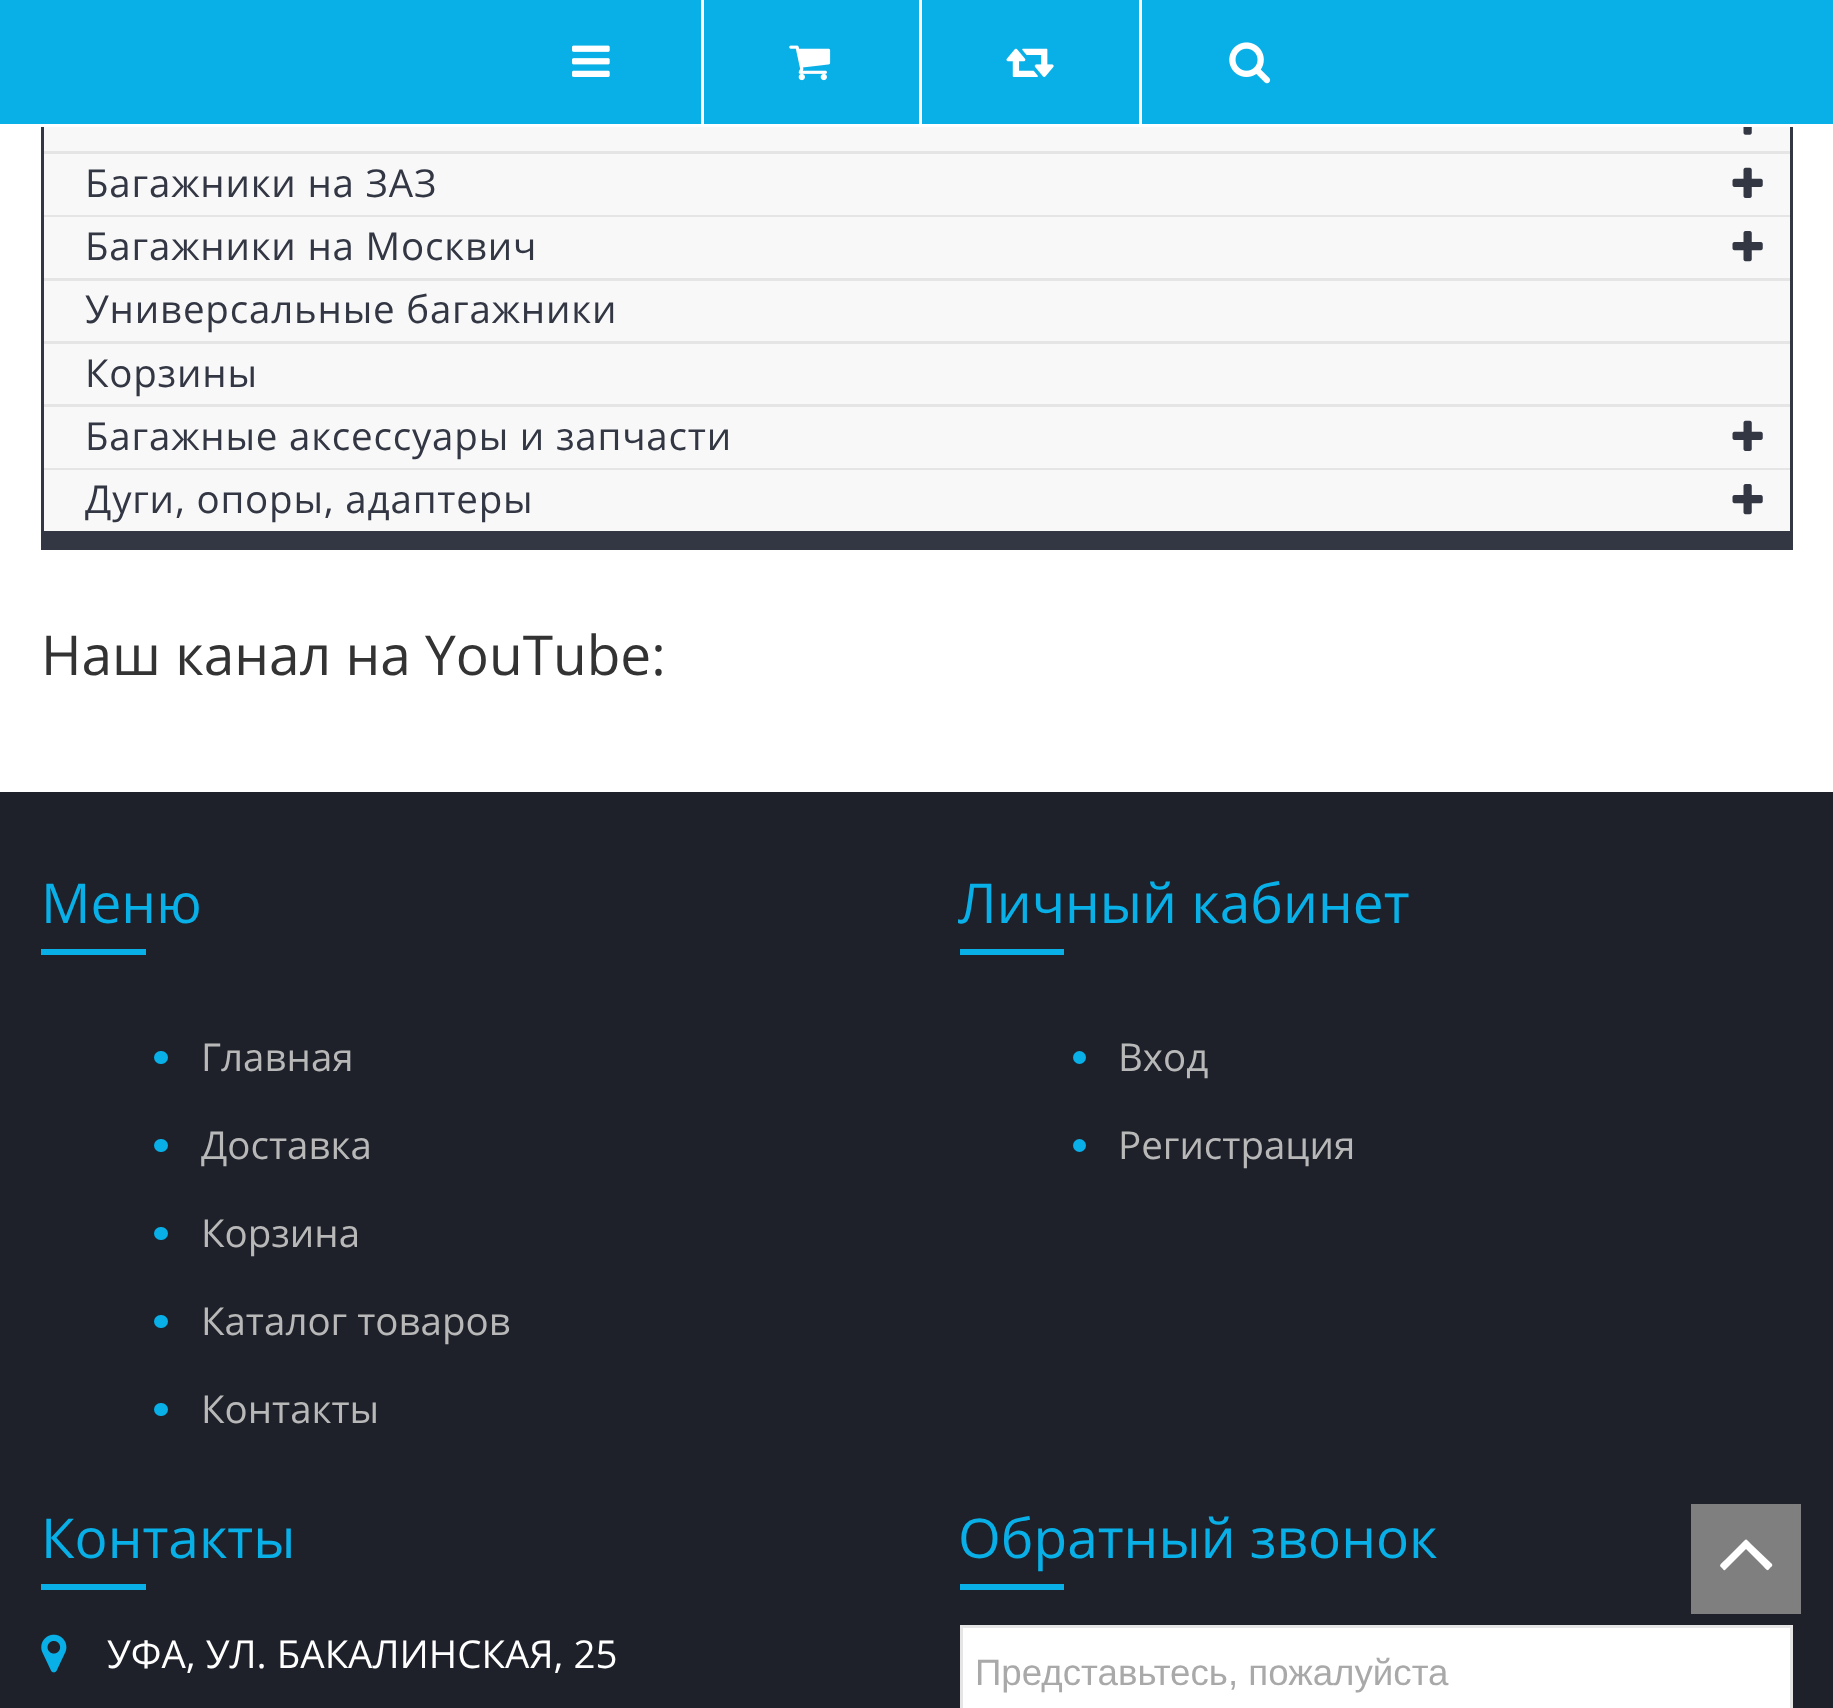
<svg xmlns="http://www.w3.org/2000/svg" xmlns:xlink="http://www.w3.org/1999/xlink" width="1833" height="1708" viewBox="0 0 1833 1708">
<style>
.cls-1{font:38.5px Open Sans;letter-spacing:0.8px;fill:#333744}
.cls-2{font:55px Open Sans;fill:#333333}
.cls-3{font:55px Open Sans;fill:#09afe7}
.cls-4{font:38.5px Open Sans;fill:#b8b8b8}
.cls-5{font:38.5px Open Sans;fill:#ffffff}
.cls-6{font:36.7px Liberation Sans;fill:#a9a9a9}
</style>
<rect width="100%" height="100%" fill="#ffffff"/>
<rect fill="#09afe7" x="0" y="0" width="1833" height="124"/>
<rect fill="#ffffff" x="701" y="0" width="3" height="124"/>
<image xlink:href="image0.png" x="572" y="45" width="38" height="32"/>
<rect fill="#ffffff" x="919" y="0" width="3" height="124"/>
<image xlink:href="image1.png" x="789" y="45" width="42" height="36"/>
<rect fill="#ffffff" x="1139" y="0" width="3" height="124"/>
<image xlink:href="image2.png" x="1006" y="48" width="48" height="29"/>
<image xlink:href="image3.png" x="1229" y="42" width="42" height="42"/>
<rect fill="#333744" x="1790" y="127" width="3" height="404"/>
<rect fill="#333744" x="44" y="531" width="1749" height="19"/>
<rect fill="#333744" x="41" y="127" width="3" height="423"/>
<rect fill="#f8f8f8" x="44" y="127" width="1746" height="24"/>
<rect fill="#e5e5e5" x="44" y="151" width="1746" height="3"/>
<image xlink:href="image4.png" x="1743" y="127" width="9" height="8"/>
<rect fill="#f8f8f8" x="44" y="154" width="1746" height="61"/>
<rect fill="#e5e5e5" x="44" y="215" width="1746" height="2"/>
<image xlink:href="image5.png" x="1732" y="167" width="31" height="31"/>
<rect fill="#f8f8f8" x="44" y="217" width="1746" height="61"/>
<rect fill="#e5e5e5" x="44" y="278" width="1746" height="3"/>
<image xlink:href="image6.png" x="1732" y="231" width="31" height="31"/>
<rect fill="#f8f8f8" x="44" y="281" width="1746" height="60"/>
<rect fill="#e5e5e5" x="44" y="341" width="1746" height="3"/>
<rect fill="#f8f8f8" x="44" y="344" width="1746" height="60"/>
<rect fill="#e5e5e5" x="44" y="404" width="1746" height="3"/>
<rect fill="#f8f8f8" x="44" y="407" width="1746" height="61"/>
<rect fill="#e5e5e5" x="44" y="468" width="1746" height="2"/>
<image xlink:href="image5.png" x="1732" y="420" width="31" height="31"/>
<rect fill="#f8f8f8" x="44" y="470" width="1746" height="61"/>
<image xlink:href="image6.png" x="1732" y="484" width="31" height="31"/>
<rect fill="#1e212a" x="0" y="792" width="1833" height="916"/>
<rect fill="#09afe7" x="41" y="949" width="105" height="6"/>
<rect fill="#09afe7" x="154" y="1051" width="14" height="13" rx="6.5"/>
<rect fill="#09afe7" x="154" y="1139" width="14" height="13" rx="6.5"/>
<rect fill="#09afe7" x="154" y="1227" width="14" height="13" rx="6.5"/>
<rect fill="#09afe7" x="154" y="1315" width="14" height="13" rx="6.5"/>
<rect fill="#09afe7" x="154" y="1403" width="14" height="13" rx="6.5"/>
<rect fill="#09afe7" x="960" y="949" width="104" height="6"/>
<circle fill="#09afe7" cx="1079.5" cy="1057.5" r="6.5"/>
<circle fill="#09afe7" cx="1079.5" cy="1145.5" r="6.5"/>
<rect fill="#09afe7" x="41" y="1584" width="105" height="6"/>
<image xlink:href="image7.png" x="41" y="1634" width="26" height="39"/>
<rect fill="#09afe7" x="960" y="1584" width="104" height="6"/>
<rect fill="#ffffff" stroke="#e5e5e5" stroke-width="3" x="961.5" y="1626.5" width="830" height="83"/>
<rect fill="#7f7f7f" x="1691" y="1504" width="110" height="110"/>
<path fill="#ffffff" d="M1772 1564C1773 1566 1771 1567 1770 1568C1767 1572 1767 1570 1763 1566L1746 1549L1725 1570C1724 1571 1723 1569 1722 1568C1718 1565 1721 1564 1725 1560L1741 1544C1747 1538 1745 1538 1751 1544Z"/>
<text class="cls-1"><tspan x="85" y="197">Багажники на ЗАЗ</tspan><tspan x="85" y="260">Багажники на Москвич</tspan><tspan x="85" y="323">Универсальные багажники</tspan><tspan x="85" y="387">Корзины</tspan><tspan x="85" y="450">Багажные аксессуары и запчасти</tspan><tspan x="85" y="513">Дуги, опоры, адаптеры</tspan></text>
<text class="cls-2" x="41" y="675">Наш канал на YouTube:</text>
<text class="cls-3" x="41" y="923">Меню</text>
<text class="cls-4" x="201" y="1071">Главная</text>
<text class="cls-4" x="201" y="1159">Доставка</text>
<text class="cls-4" x="201" y="1247">Корзина</text>
<text class="cls-4" x="201" y="1335">Каталог товаров</text>
<text class="cls-4" x="201" y="1423">Контакты</text>
<text class="cls-3" x="958" y="923">Личный кабинет</text>
<text class="cls-4" x="1118" y="1071">Вход</text>
<text class="cls-4" x="1118" y="1159">Регистрация</text>
<text class="cls-3" x="41" y="1558">Контакты</text>
<text class="cls-5" x="107" y="1668">УФА, УЛ. БАКАЛИНСКАЯ, 25</text>
<text class="cls-3" x="958" y="1558">Обратный звонок</text>
<text class="cls-6" x="975" y="1685">Представьтесь, пожалуйста</text>
</svg>
